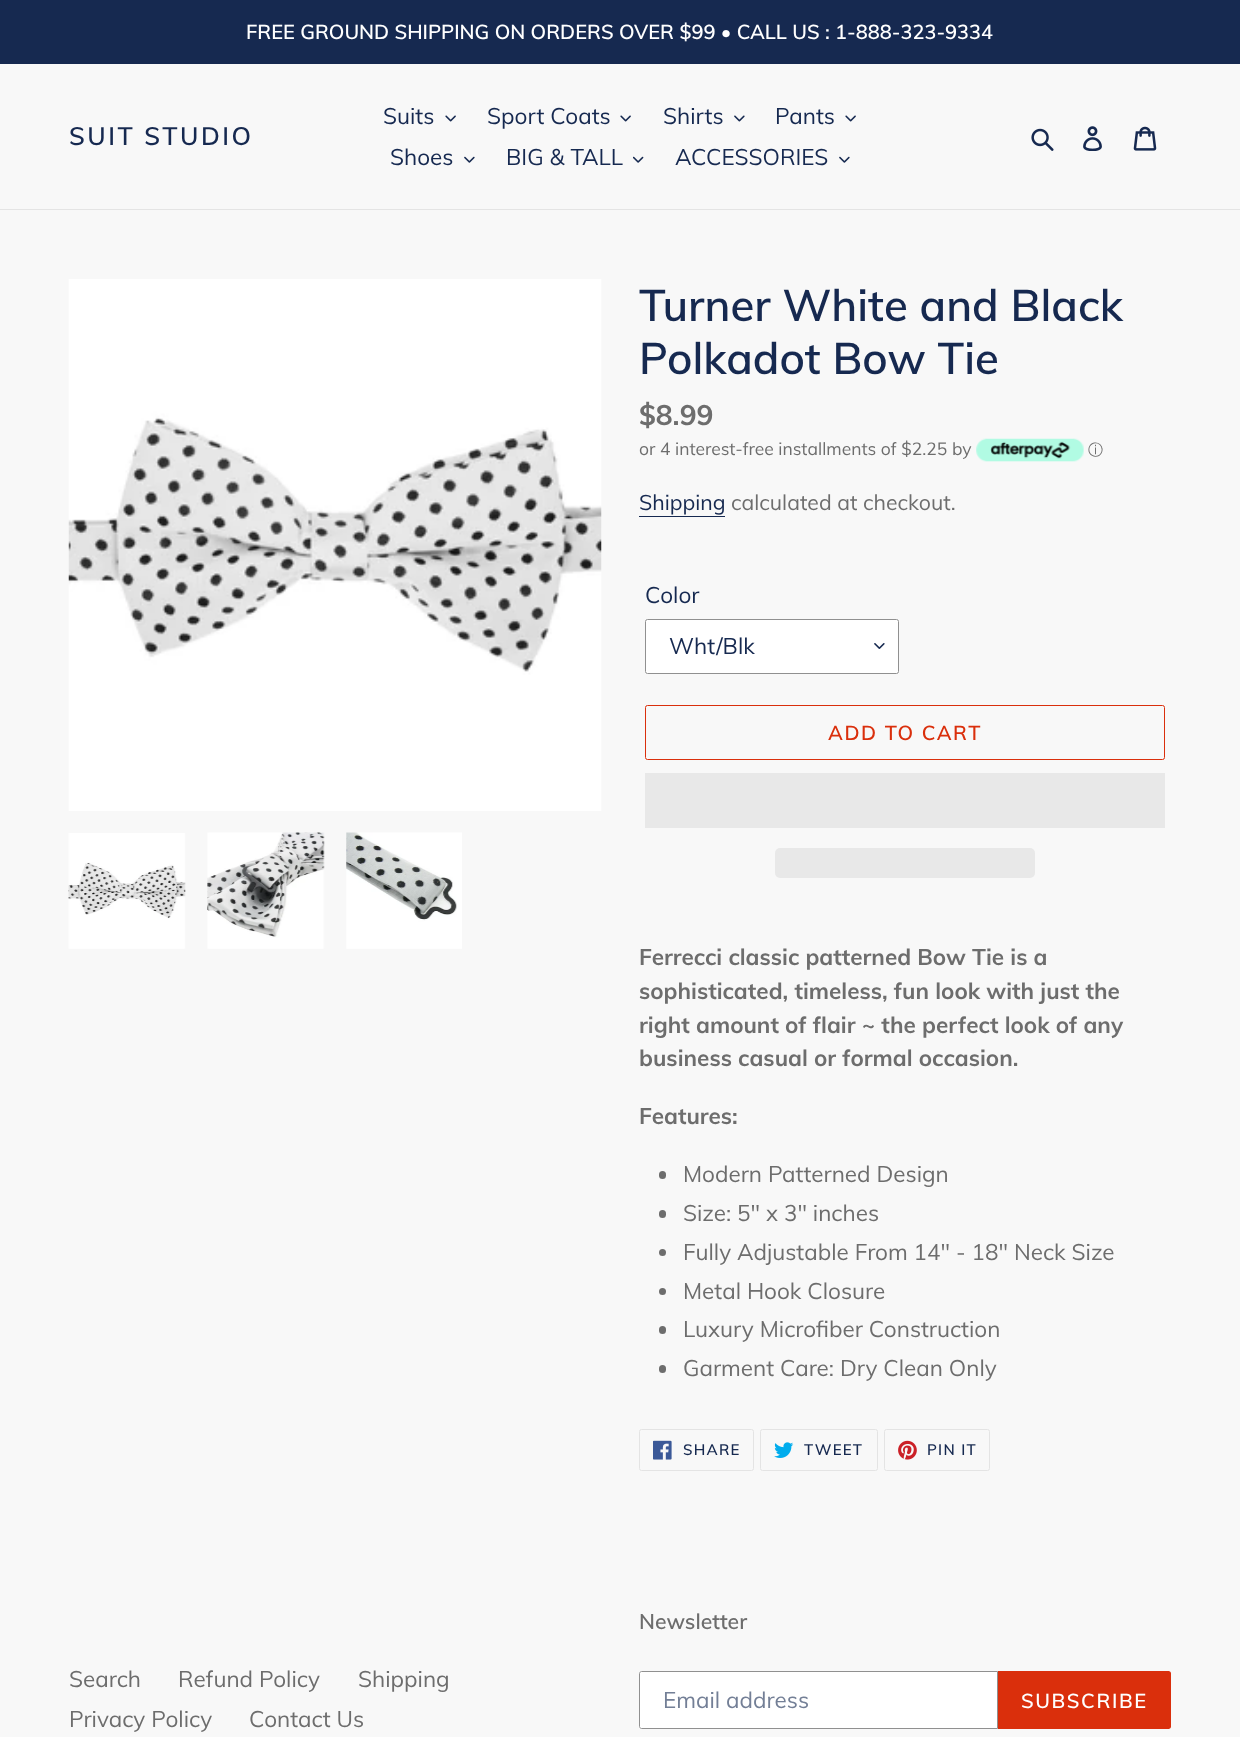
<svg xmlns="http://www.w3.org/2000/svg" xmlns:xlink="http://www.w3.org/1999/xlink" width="1240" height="1737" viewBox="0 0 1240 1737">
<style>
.cls-1{font:600 20px Muli;fill:#ffffff}
.cls-2{font:600 25px Muli;letter-spacing:2.5px;fill:#162950}
.cls-3{font:22.5px Muli;fill:#162950}
.cls-4{font:600 43.75px Muli;fill:#162950}
.cls-5{font:bold 28px Muli;fill:#6d6d6d}
.cls-6{font:17.5px Muli;fill:#6d6d6d}
.cls-7{font:500 15px WenQuanYi Zen Hei;fill:#6d6d6d}
.cls-8{font:21.25px Muli;fill:#162950}
.cls-9{font:21.25px Muli;fill:#6d6d6d}
.cls-10{font:600 20px Muli;letter-spacing:1.6px;fill:#da2f0c}
.cls-11{font:bold 22.5px Muli;fill:#6d6d6d}
.cls-12{font:22.5px Muli;fill:#6d6d6d}
.cls-13{font:600 15px Muli;letter-spacing:1.25px;fill:#162950}
.cls-14{font:600 21.25px Muli;fill:#6d6d6d}
.cls-15{font:22.5px Muli;fill:#737f96}
.cls-16{font:600 20px Muli;letter-spacing:1.6px;fill:#ffffff}
</style>
<rect width="100%" height="100%" fill="#f8f8f8"/>
<rect fill="#162950" x="0" y="0" width="1240" height="64"/>
<rect fill="#e4e4e4" x="0" y="209" width="1240" height="1"/>
<image xlink:href="image0.png" x="445" y="115" width="11" height="7"/>
<image xlink:href="image0.png" x="620" y="115" width="11" height="7"/>
<image xlink:href="image1.png" x="734" y="115" width="11" height="7"/>
<image xlink:href="image0.png" x="845" y="115" width="11" height="7"/>
<image xlink:href="image2.png" x="464" y="156" width="11" height="7"/>
<image xlink:href="image3.png" x="633" y="156" width="11" height="7"/>
<image xlink:href="image2.png" x="839" y="156" width="11" height="7"/>
<image xlink:href="image4.png" x="1031" y="128" width="23" height="23"/>
<image xlink:href="image5.png" x="1083" y="126" width="19" height="25"/>
<image xlink:href="image6.png" x="1133" y="126" width="24" height="25"/>
<image xlink:href="image7.png" x="68" y="279" width="534" height="532"/>
<image xlink:href="image8.png" x="68" y="833" width="118" height="116"/>
<image xlink:href="image9.png" x="207" y="832" width="118" height="117"/>
<image xlink:href="image10.png" x="346" y="832" width="116" height="117"/>
<image xlink:href="image11.png" x="976" y="438" width="108" height="24"/>
<rect fill="#162950" x="639" y="516" width="86" height="1"/>
<rect fill="#ffffff" x="645" y="619" width="254" height="55" rx="2.5"/>
<image xlink:href="image12.png" x="874" y="643" width="11" height="6"/>
<rect fill="none" stroke="#909090" x="645.5" y="619.5" width="253" height="54" rx="2"/>
<rect fill="none" stroke="#da2f0c" x="645.5" y="705.5" width="519" height="54" rx="2"/>
<rect fill="#e8e8e8" x="645" y="773" width="520" height="55"/>
<rect fill="#e8e8e8" x="775" y="848" width="260" height="30" rx="5"/>
<rect fill="#6d6d6d" x="659" y="1171" width="7" height="8" rx="3.5"/>
<rect fill="#6d6d6d" x="659" y="1210" width="7" height="8" rx="3.5"/>
<circle fill="#6d6d6d" cx="662.5" cy="1252.5" r="3.5"/>
<circle fill="#6d6d6d" cx="662.5" cy="1291.5" r="3.5"/>
<rect fill="#6d6d6d" x="659" y="1326" width="7" height="8" rx="3.5"/>
<rect fill="#6d6d6d" x="659" y="1365" width="7" height="8" rx="3.5"/>
<rect fill="none" stroke="#e4e4e4" x="639.5" y="1429.5" width="114" height="41" rx="2"/>
<image xlink:href="image13.png" x="653" y="1440" width="19" height="20"/>
<rect fill="none" stroke="#e4e4e4" x="760.5" y="1429.5" width="117" height="41" rx="2"/>
<image xlink:href="image14.png" x="774" y="1442" width="20" height="16"/>
<rect fill="none" stroke="#e4e4e4" x="884.5" y="1429.5" width="105" height="41" rx="2"/>
<image xlink:href="image15.png" x="898" y="1440" width="19" height="20"/>
<path fill="#ffffff" stroke="#909090" d="M641.5 1671.5H997.5V1728.5H641.5C640.5 1728.5 639.5 1727.5 639.5 1726.5V1673.5C639.5 1672.5 640.5 1671.5 641.5 1671.5Z"/>
<path fill="#da2f0c" d="M998 1671H1168.5C1170 1671 1171 1672 1171 1673.5V1726.5C1171 1728 1170 1729 1168.5 1729H998Z"/>
<text class="cls-1" x="246" y="39">FREE GROUND SHIPPING ON ORDERS OVER $99 • CALL US : 1-888-323-9334</text>
<text class="cls-2" x="69" y="145">SUIT STUDIO</text>
<text class="cls-3" x="383" y="124">Suits</text>
<text class="cls-3" x="487" y="124">Sport Coats</text>
<text class="cls-3" x="663" y="124">Shirts</text>
<text class="cls-3" x="775" y="124">Pants</text>
<text class="cls-3" x="390" y="165">Shoes</text>
<text class="cls-3" x="506" y="165">BIG &amp; TALL</text>
<text class="cls-3" x="675" y="165">ACCESSORIES</text>
<text class="cls-4"><tspan x="639" y="321">Turner White and Black</tspan><tspan x="639" y="374">Polkadot Bow Tie</tspan></text>
<text class="cls-5" x="639" y="425">$8.99</text>
<text class="cls-6" x="639" y="455">or 4 interest-free installments of $2.25 by</text>
<text class="cls-7" x="1088" y="455">ⓘ</text>
<text class="cls-8" x="639" y="510">Shipping</text>
<text class="cls-9" x="731" y="510">calculated at checkout.</text>
<text class="cls-3" x="645" y="603">Color</text>
<text class="cls-3" x="669" y="654">Wht/Blk</text>
<text class="cls-10" x="828" y="740">ADD TO CART</text>
<text class="cls-11"><tspan x="639" y="965">Ferrecci classic patterned Bow Tie is a</tspan><tspan x="639" y="999">sophisticated, timeless, fun look with just the</tspan><tspan x="639" y="1033">right amount of flair ~ the perfect look of any</tspan><tspan x="639" y="1066">business casual or formal occasion.</tspan></text>
<text class="cls-11" x="639" y="1124">Features:</text>
<text class="cls-12" x="683" y="1182">Modern P</text>
<text class="cls-12" x="782" y="1182">atterned Design</text>
<text class="cls-12"><tspan x="683" y="1221">Size: 5" x 3" inches</tspan><tspan x="683" y="1260">Fully Adjustable From 14" - 18" Neck Size</tspan><tspan x="683" y="1299">Metal Hook Closure</tspan><tspan x="683" y="1337">Luxury Microfiber Construction</tspan><tspan x="683" y="1376">Garment Care: Dry Clean Only</tspan></text>
<text class="cls-13" x="683" y="1455">SHARE</text>
<text class="cls-13" x="804" y="1455">TWEET</text>
<text class="cls-13" x="927" y="1455">PIN IT</text>
<text class="cls-12" x="69" y="1687">Search</text>
<text class="cls-12" x="178" y="1687">Refund Policy</text>
<text class="cls-12" x="358" y="1687">Shipping</text>
<text class="cls-12" x="69" y="1727">Privacy Policy</text>
<text class="cls-12" x="249" y="1727">Contact Us</text>
<text class="cls-14" x="639" y="1629">Newsletter</text>
<text class="cls-15" x="663" y="1708">Email address</text>
<text class="cls-16" x="1021" y="1708">SUBSCRIBE</text>
</svg>
